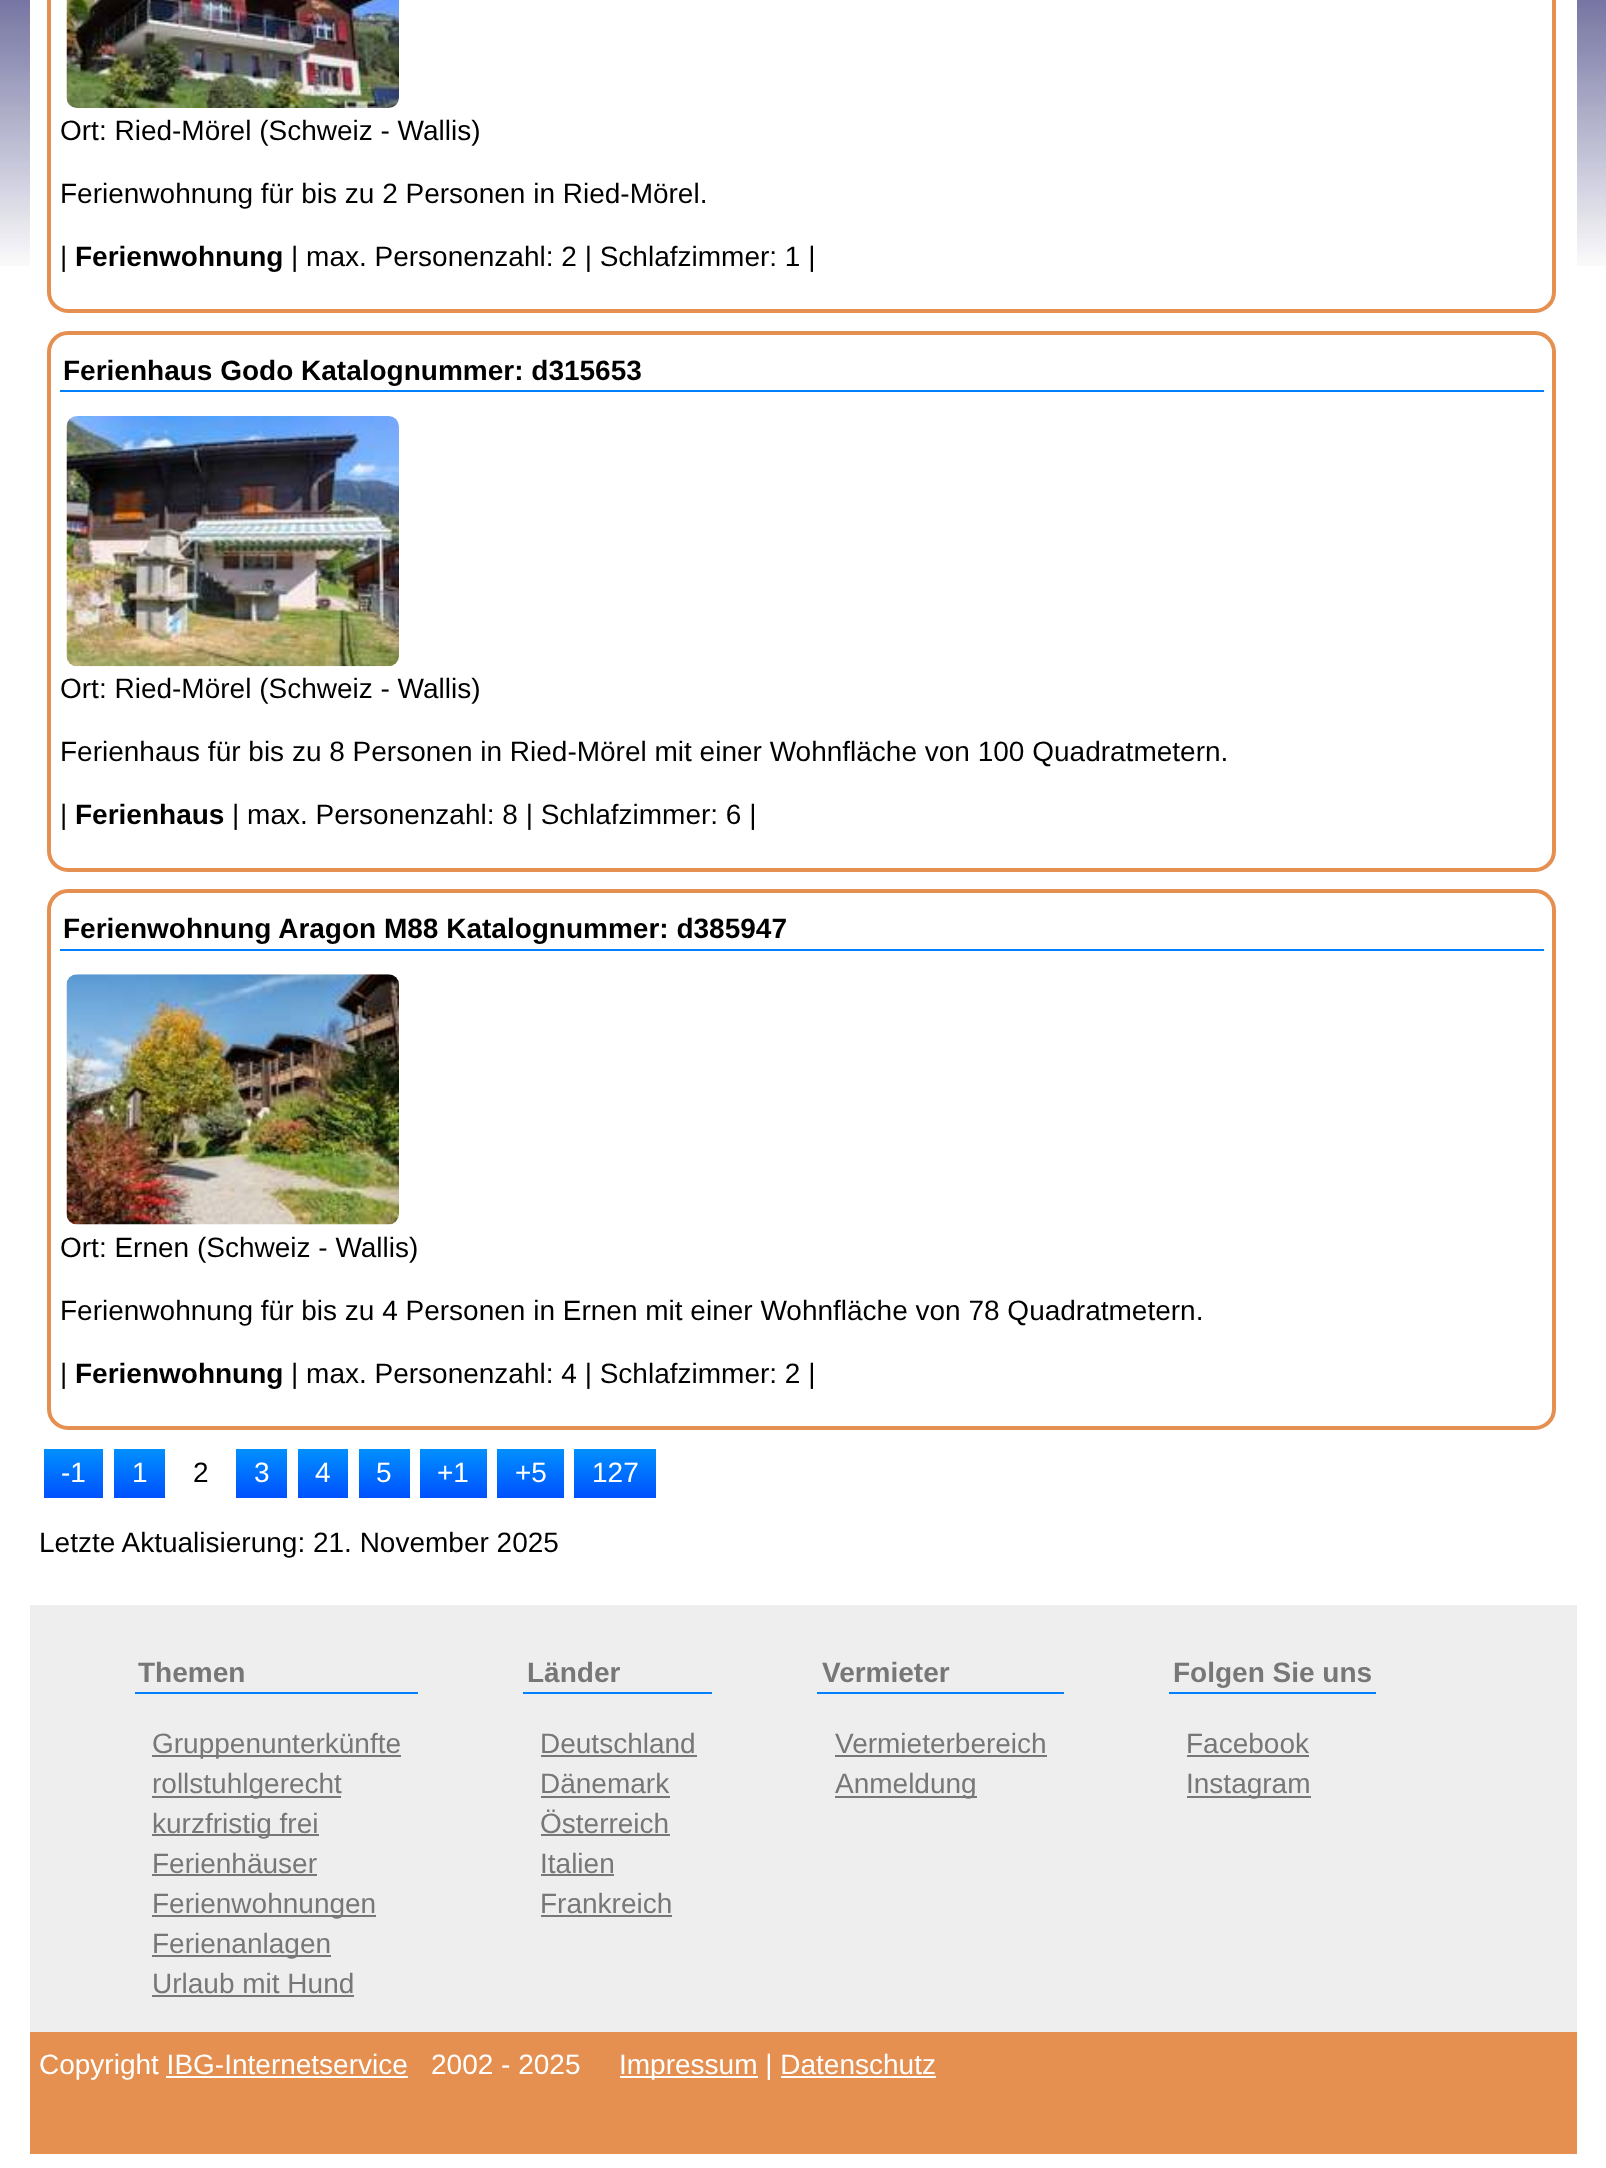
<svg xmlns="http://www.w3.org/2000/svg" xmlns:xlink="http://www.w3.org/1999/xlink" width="1606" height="2168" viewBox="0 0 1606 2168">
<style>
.cls-1{font:28px Liberation Sans;fill:#000000}
.cls-2{font:bold 28px Liberation Sans;fill:#000000}
.cls-3{font:28px Liberation Sans;fill:#ffffff}
.cls-4{font:bold 28px Liberation Sans;fill:#777777}
.cls-5{font:28px Liberation Sans;fill:#777777}
</style>
<defs>
<linearGradient id="g1" gradientUnits="userSpaceOnUse" x1="74" y1="1449" x2="74" y2="1498"><stop offset="0" stop-color="#0090ff"/><stop offset="1" stop-color="#0050ff"/></linearGradient>
<linearGradient id="g2" gradientUnits="userSpaceOnUse" x1="139" y1="1449" x2="139" y2="1498"><stop offset="0" stop-color="#0090ff"/><stop offset="1" stop-color="#0050ff"/></linearGradient>
<linearGradient id="g3" gradientUnits="userSpaceOnUse" x1="262" y1="1449" x2="262" y2="1498"><stop offset="0" stop-color="#0090ff"/><stop offset="1" stop-color="#0050ff"/></linearGradient>
<linearGradient id="g4" gradientUnits="userSpaceOnUse" x1="323" y1="1449" x2="323" y2="1498"><stop offset="0" stop-color="#0090ff"/><stop offset="1" stop-color="#0050ff"/></linearGradient>
<linearGradient id="g5" gradientUnits="userSpaceOnUse" x1="384" y1="1449" x2="384" y2="1498"><stop offset="0" stop-color="#0090ff"/><stop offset="1" stop-color="#0050ff"/></linearGradient>
<linearGradient id="g6" gradientUnits="userSpaceOnUse" x1="453" y1="1449" x2="453" y2="1498"><stop offset="0" stop-color="#0090ff"/><stop offset="1" stop-color="#0050ff"/></linearGradient>
<linearGradient id="g7" gradientUnits="userSpaceOnUse" x1="530" y1="1449" x2="530" y2="1498"><stop offset="0" stop-color="#0090ff"/><stop offset="1" stop-color="#0050ff"/></linearGradient>
<linearGradient id="g8" gradientUnits="userSpaceOnUse" x1="615" y1="1449" x2="615" y2="1498"><stop offset="0" stop-color="#0090ff"/><stop offset="1" stop-color="#0050ff"/></linearGradient>
</defs>
<rect width="100%" height="100%" fill="#ffffff"/>
<image xlink:href="image0.png" x="0" y="0" width="1606" height="266"/>
<rect fill="#eeeeee" x="30" y="1605" width="1547" height="427"/>
<rect fill="#ffffff" x="30" y="0" width="1547" height="266"/>
<rect fill="none" stroke="#e59050" stroke-width="4" x="49" y="-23" width="1505" height="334" rx="19"/>
<image xlink:href="image1.png" x="66" y="0" width="333" height="108"/>
<rect fill="none" stroke="#e59050" stroke-width="4" x="49" y="333" width="1505" height="537" rx="19"/>
<rect fill="#0080ff" x="60" y="390" width="1484" height="2"/>
<image xlink:href="image2.png" x="66" y="416" width="333" height="251"/>
<rect fill="none" stroke="#e59050" stroke-width="4" x="49" y="891" width="1505" height="537" rx="19"/>
<rect fill="#0080ff" x="60" y="949" width="1484" height="2"/>
<image xlink:href="image3.png" x="66" y="974" width="333" height="251"/>
<rect fill="url(#g1)" x="44" y="1449" width="59" height="49"/>
<rect fill="url(#g2)" x="114" y="1449" width="51" height="49"/>
<rect fill="url(#g3)" x="236" y="1449" width="51" height="49"/>
<rect fill="url(#g4)" x="298" y="1449" width="50" height="49"/>
<rect fill="url(#g5)" x="359" y="1449" width="51" height="49"/>
<rect fill="url(#g6)" x="420" y="1449" width="67" height="49"/>
<rect fill="url(#g7)" x="497" y="1449" width="67" height="49"/>
<rect fill="url(#g8)" x="574" y="1449" width="82" height="49"/>
<rect fill="#0080ff" x="135" y="1692" width="283" height="2"/>
<rect fill="#777777" x="152" y="1755" width="249" height="2"/>
<rect fill="#777777" x="152" y="1796" width="189" height="2"/>
<rect fill="#777777" x="152" y="1834" width="167" height="2"/>
<rect fill="#777777" x="152" y="1874" width="165" height="2"/>
<rect fill="#777777" x="152" y="1915" width="224" height="2"/>
<rect fill="#777777" x="152" y="1955" width="179" height="2"/>
<rect fill="#777777" x="152" y="1995" width="202" height="2"/>
<rect fill="#0080ff" x="523" y="1692" width="189" height="2"/>
<rect fill="#777777" x="541" y="1755" width="156" height="2"/>
<rect fill="#777777" x="541" y="1796" width="129" height="2"/>
<rect fill="#777777" x="541" y="1834" width="129" height="2"/>
<rect fill="#777777" x="541" y="1874" width="73" height="2"/>
<rect fill="#777777" x="541" y="1915" width="131" height="2"/>
<rect fill="#0080ff" x="817" y="1692" width="247" height="2"/>
<rect fill="#777777" x="835" y="1755" width="212" height="2"/>
<rect fill="#777777" x="835" y="1796" width="142" height="2"/>
<rect fill="#0080ff" x="1169" y="1692" width="207" height="2"/>
<rect fill="#777777" x="1187" y="1755" width="122" height="2"/>
<rect fill="#777777" x="1187" y="1796" width="124" height="2"/>
<rect fill="#e59050" x="30" y="2032" width="1547" height="122"/>
<rect fill="#ffffff" x="620" y="2076" width="138" height="2"/>
<rect fill="#ffffff" x="166" y="2076" width="242" height="2"/>
<rect fill="#ffffff" x="781" y="2076" width="155" height="2"/>
<text class="cls-1" x="60" y="140">Ort: Ried-Mörel (Schweiz - Wallis)</text>
<text class="cls-1" x="60" y="203">Ferienwohnung für bis zu 2 Personen in Ried-Mörel.</text>
<text class="cls-1" x="60" y="266">|</text>
<text class="cls-2" x="75" y="266">Ferienwohnung</text>
<text class="cls-1" x="291" y="266">| max. Personenzahl: 2 | Schlafzimmer: 1 |</text>
<text class="cls-2" x="63" y="380">Ferienhaus Godo Katalognummer: d315653</text>
<text class="cls-1" x="60" y="698">Ort: Ried-Mörel (Schweiz - Wallis)</text>
<text class="cls-1" x="60" y="761">Ferienhaus für bis zu 8 Personen in Ried-Mörel mit einer Wohnfläche von 100 Quadratmetern.</text>
<text class="cls-1" x="60" y="824">|</text>
<text class="cls-2" x="75" y="824">Ferienhaus</text>
<text class="cls-1" x="232" y="824">| max. Personenzahl: 8 | Schlafzimmer: 6 |</text>
<text class="cls-2" x="63" y="938">Ferienwohnung Aragon M88 Katalognummer: d385947</text>
<text class="cls-1" x="60" y="1257">Ort: Ernen (Schweiz - Wallis)</text>
<text class="cls-1" x="60" y="1320">Ferienwohnung für bis zu 4 Personen in Ernen mit einer Wohnfläche von 78 Quadratmetern.</text>
<text class="cls-1" x="60" y="1383">|</text>
<text class="cls-2" x="75" y="1383">Ferienwohnung</text>
<text class="cls-1" x="291" y="1383">| max. Personenzahl: 4 | Schlafzimmer: 2 |</text>
<text class="cls-3" x="61" y="1482">-1</text>
<text class="cls-3" x="132" y="1482">1</text>
<text class="cls-1" x="193" y="1482">2</text>
<text class="cls-3" x="254" y="1482">3</text>
<text class="cls-3" x="315" y="1482">4</text>
<text class="cls-3" x="376" y="1482">5</text>
<text class="cls-3" x="437" y="1482">+1</text>
<text class="cls-3" x="515" y="1482">+5</text>
<text class="cls-3" x="592" y="1482">127</text>
<text class="cls-1" x="39" y="1552">Letzte Aktualisierung: 21. November 2025</text>
<text class="cls-4" x="138" y="1682">Themen</text>
<text class="cls-5"><tspan x="152" y="1753">Gruppenunterkünfte</tspan><tspan x="152" y="1793">rollstuhlgerecht</tspan><tspan x="152" y="1833">kurzfristig frei</tspan><tspan x="152" y="1873">Ferienhäuser</tspan><tspan x="152" y="1913">Ferienwohnungen</tspan><tspan x="152" y="1953">Ferienanlagen</tspan><tspan x="152" y="1993">Urlaub mit Hund</tspan></text>
<text class="cls-4" x="527" y="1682">Länder</text>
<text class="cls-5"><tspan x="540" y="1753">Deutschland</tspan><tspan x="540" y="1793">Dänemark</tspan><tspan x="540" y="1833">Österreich</tspan><tspan x="540" y="1873">Italien</tspan><tspan x="540" y="1913">Frankreich</tspan></text>
<text class="cls-4" x="822" y="1682">Vermieter</text>
<text class="cls-5"><tspan x="835" y="1753">Vermieterbereich</tspan><tspan x="835" y="1793">Anmeldung</tspan></text>
<text class="cls-4" x="1173" y="1682">Folgen Sie uns</text>
<text class="cls-5"><tspan x="1186" y="1753">Facebook</tspan><tspan x="1186" y="1793">Instagram</tspan></text>
<text class="cls-3" x="39" y="2074">Copyright IBG-Internetservice</text>
<text class="cls-3" x="431" y="2074">2002 - 2025</text>
<text class="cls-3" x="619" y="2074">Impressum | Datenschutz</text>
</svg>
